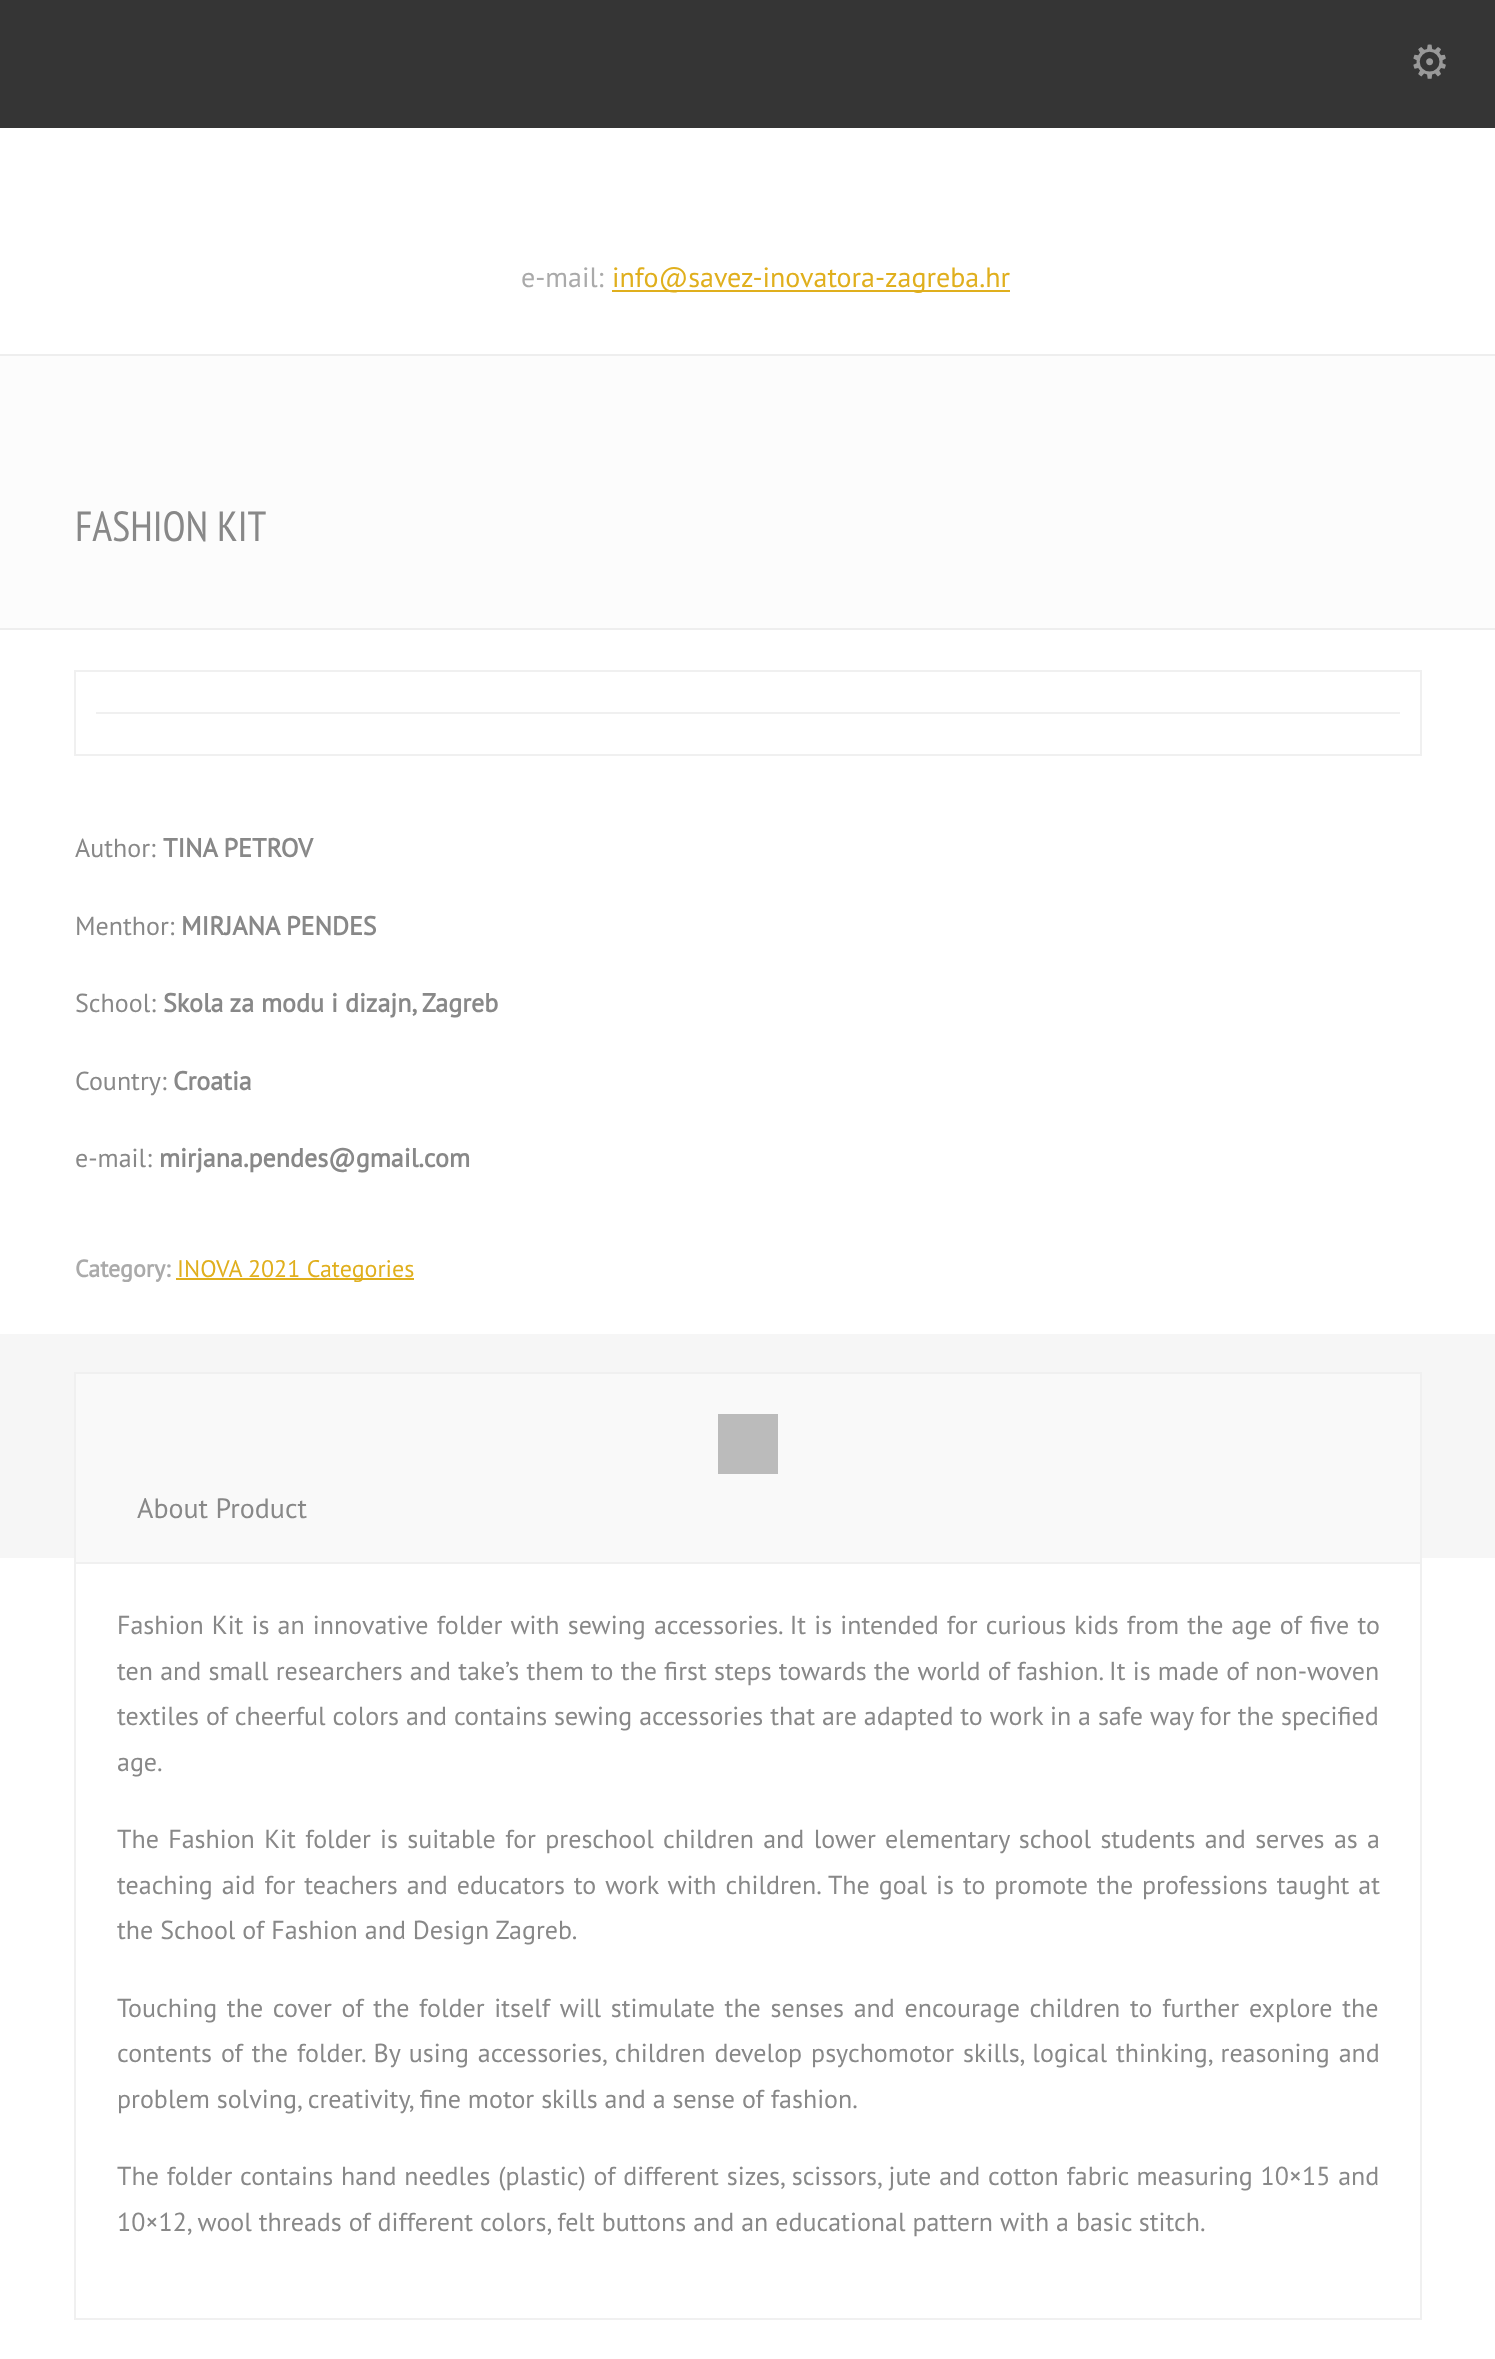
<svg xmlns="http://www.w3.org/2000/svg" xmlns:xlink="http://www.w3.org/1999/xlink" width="1495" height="2359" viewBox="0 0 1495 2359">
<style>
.cls-1{font:46px DejaVu Sans;fill:#999999}
.cls-2{font:28px PT Sans;fill:#aaaaaa}
.cls-3{font:28px PT Sans;fill:#e0af1d}
.cls-4{font:42px PT Sans Narrow;fill:#888888}
.cls-5{font:26px PT Sans;fill:#888888}
.cls-6{font:bold 26px PT Sans;fill:#888888}
.cls-7{font:bold 24px PT Sans;fill:#aaaaaa}
.cls-8{font:24px PT Sans;fill:#e0af1d}
.cls-9{font:28px PT Sans;fill:#888888}
</style>
<rect width="100%" height="100%" fill="#ffffff"/>
<rect fill="#353535" x="0" y="0" width="1495" height="128"/>
<rect fill="#e0af1d" x="612" y="290" width="398" height="2"/>
<rect fill="#fcfcfc" x="0" y="356" width="1495" height="272"/>
<rect fill="#eeeeee" x="0" y="354" width="1495" height="2"/>
<rect fill="#eeeeee" x="0" y="628" width="1495" height="2"/>
<rect fill="none" stroke="#f0f0f0" stroke-width="2" x="75" y="671" width="1346" height="84"/>
<rect fill="#f0f0f0" x="96" y="712" width="1304" height="2"/>
<rect fill="#e0af1d" x="176" y="1278" width="238" height="2"/>
<rect fill="#f6f6f6" x="0" y="1334" width="1495" height="224"/>
<rect fill="none" stroke="#f0f0f0" stroke-width="2" x="75" y="1373" width="1346" height="946"/>
<rect fill="#f9f9f9" x="76" y="1374" width="1344" height="188"/>
<rect fill="#f0f0f0" x="76" y="1562" width="1344" height="2"/>
<rect fill="#bbbbbb" x="718" y="1414" width="60" height="60"/>
<text class="cls-1" x="1409" y="78">⚙</text>
<text class="cls-2" x="521" y="287">e-mail:</text>
<text class="cls-3" x="612" y="287">info@savez-inovatora-zagreba.hr</text>
<text class="cls-4" x="75" y="541">FASHION KIT</text>
<text class="cls-5" x="75" y="857">Author:</text>
<text class="cls-6" x="163" y="857">TINA PETROV</text>
<text class="cls-5" x="75" y="935">Menthor:</text>
<text class="cls-6" x="181" y="935">MIRJANA PENDES</text>
<text class="cls-5" x="75" y="1012">School:</text>
<text class="cls-6" x="163" y="1012">Skola za modu i dizajn, Zagreb</text>
<text class="cls-5" x="75" y="1090">Country:</text>
<text class="cls-6" x="173" y="1090">Croatia</text>
<text class="cls-5" x="75" y="1167">e-mail:</text>
<text class="cls-6" x="159" y="1167">mirjana.pendes@gmail.com</text>
<text class="cls-7" x="75" y="1277">Category:</text>
<text class="cls-8" x="177" y="1277">INOVA 2021 Categories</text>
<text class="cls-9" x="137" y="1518">About Product</text>
<text class="cls-5"><tspan x="117" y="1634" word-spacing="1.2">Fashion Kit is an innovative folder with sewing accessories. It is intended for curious kids from the age of five to</tspan><tspan x="117" y="1680" word-spacing="0.25">ten and small researchers and take’s them to the first steps towards the world of fashion. It is made of non-woven</tspan><tspan x="117" y="1725">textiles of cheerful colors and contains sewing accessories that are adapted to work in a safe way for the specified</tspan><tspan x="117" y="1771">age.</tspan></text>
<text class="cls-5"><tspan x="117" y="1848" word-spacing="2.4">The Fashion Kit folder is suitable for preschool children and lower elementary school students and serves as a</tspan><tspan x="117" y="1894" word-spacing="2">teaching aid for teachers and educators to work with children. The goal is to promote the professions taught at</tspan><tspan x="117" y="1939">the School of Fashion and Design Zagreb.</tspan></text>
<text class="cls-5"><tspan x="117" y="2017" word-spacing="2.75">Touching the cover of the folder itself will stimulate the senses and encourage children to further explore the</tspan><tspan x="117" y="2062" word-spacing="2">contents of the folder. By using accessories, children develop psychomotor skills, logical thinking, reasoning and</tspan><tspan x="117" y="2108">problem solving, creativity, fine motor skills and a sense of fashion.</tspan></text>
<text class="cls-5"><tspan x="117" y="2185" word-spacing="0.9">The folder contains hand needles (plastic) of different sizes, scissors, jute and cotton fabric measuring 10×15 and</tspan><tspan x="117" y="2231">10×12, wool threads of different colors, felt buttons and an educational pattern with a basic stitch.</tspan></text>
</svg>
